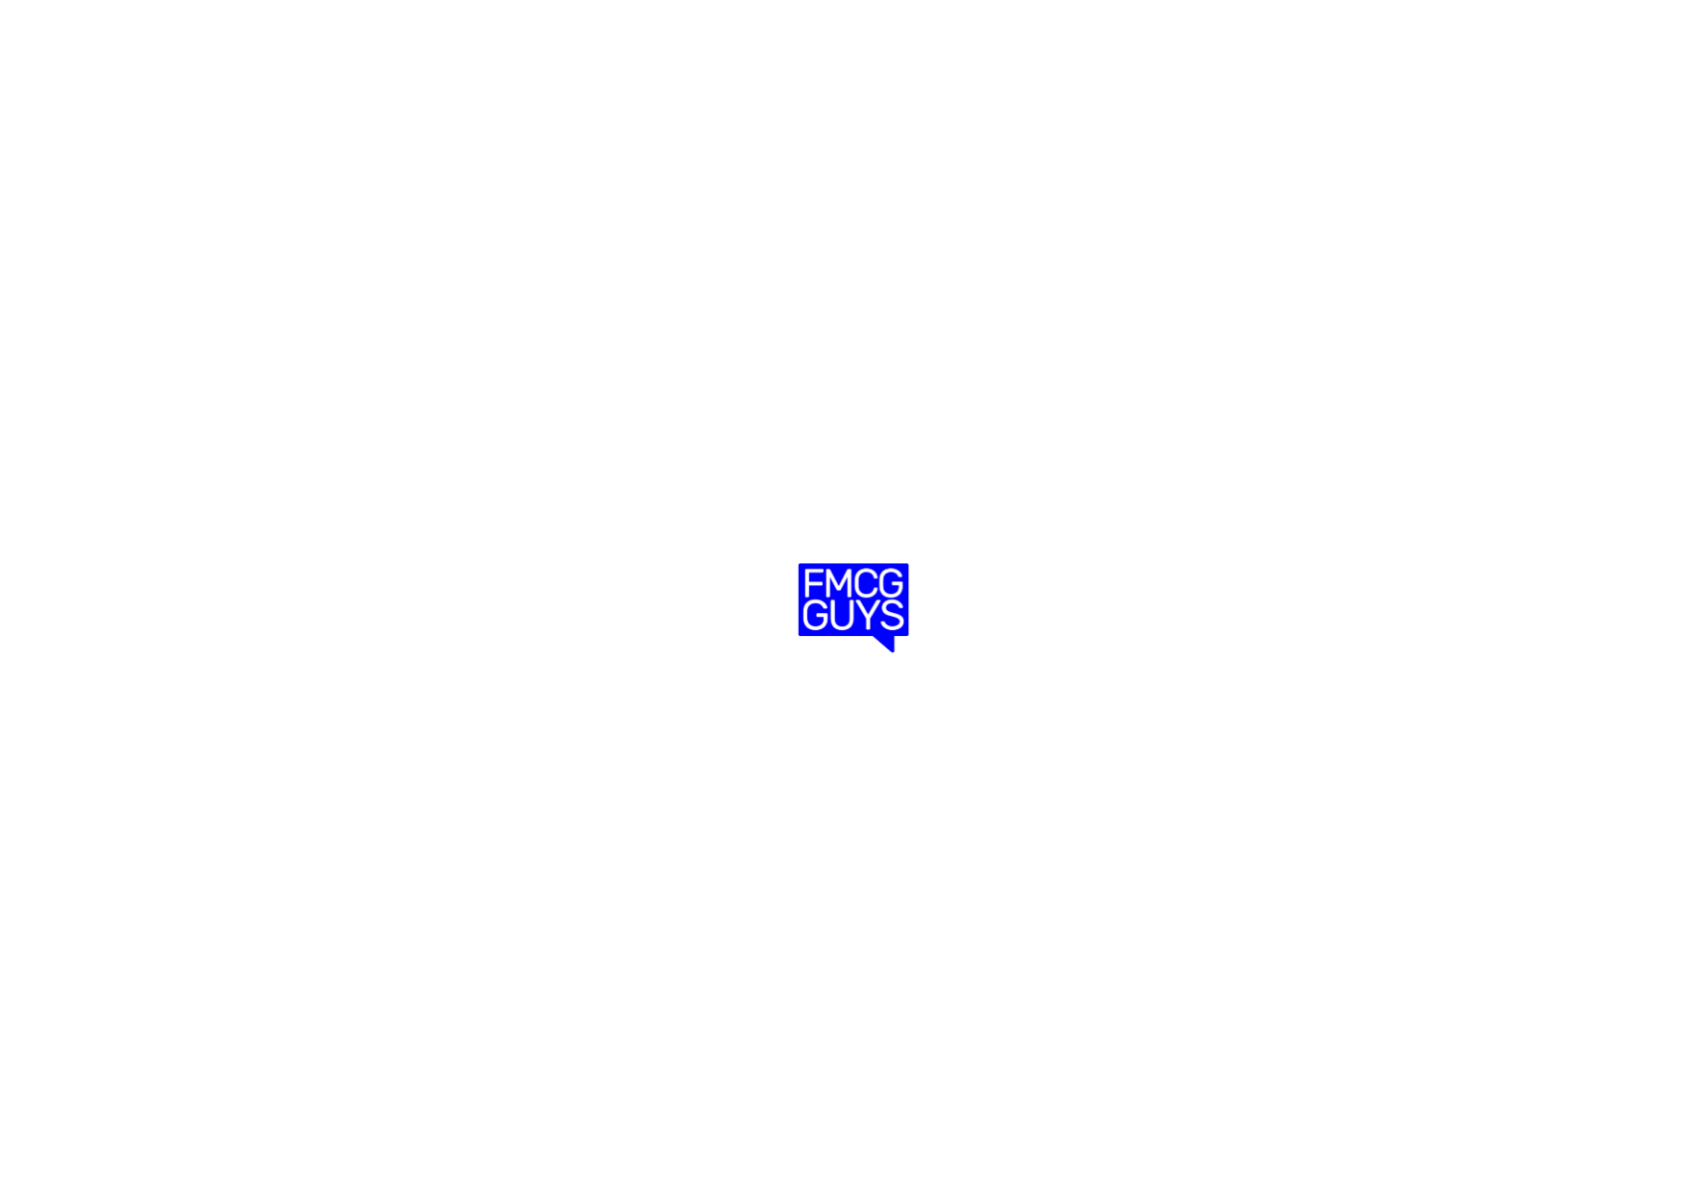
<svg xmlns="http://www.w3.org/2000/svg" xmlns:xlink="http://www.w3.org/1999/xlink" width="1706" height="1204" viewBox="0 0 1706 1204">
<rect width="100%" height="100%" fill="#ffffff"/>
<image xlink:href="image0.png" x="797" y="563" width="113" height="91"/>
</svg>
